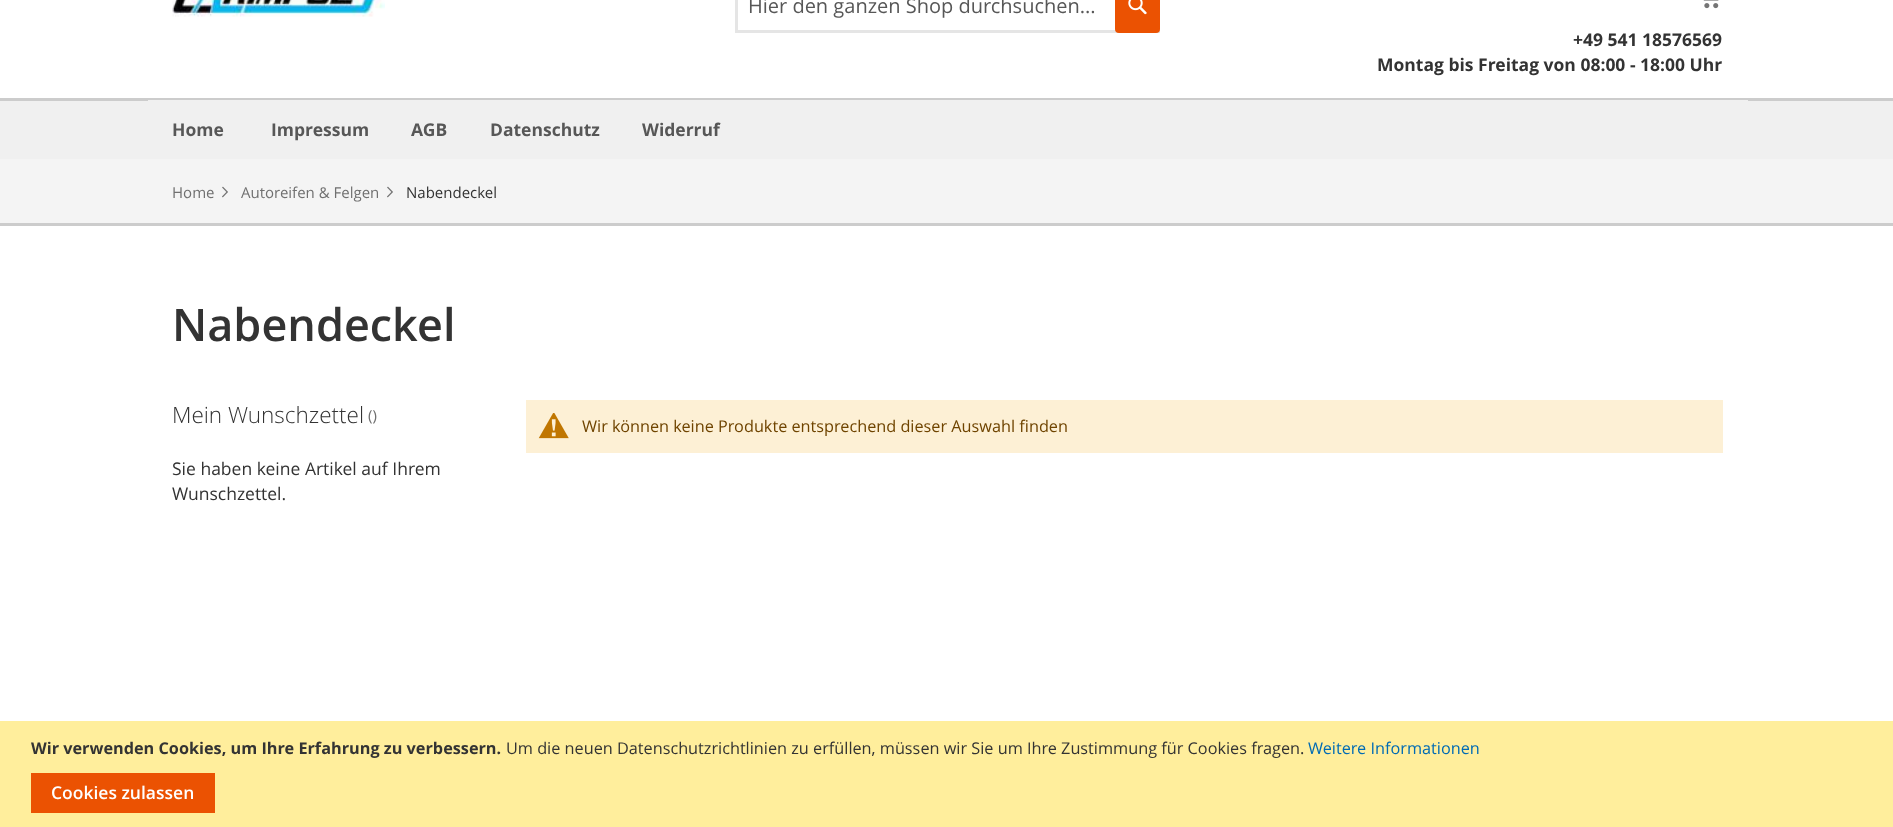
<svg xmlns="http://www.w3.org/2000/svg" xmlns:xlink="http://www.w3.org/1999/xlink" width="1893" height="827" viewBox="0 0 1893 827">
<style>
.cls-1{font:20px Open Sans;fill:#575757}
.cls-2{font:bold 17.5px Open Sans;fill:#333333}
.cls-3{font:bold 17.5px Open Sans;fill:#575757}
.cls-4{font:15px Open Sans;fill:#707070}
.cls-5{font:15px Open Sans;fill:#333333}
.cls-6{font:600 45px Open Sans;fill:#333333}
.cls-7{font:300 22.5px Open Sans;fill:#333333}
.cls-8{font:17.5px Open Sans;fill:#333333}
.cls-9{font:16.25px Open Sans;fill:#6f4400}
.cls-10{font:bold 16.25px Open Sans;fill:#333333}
.cls-11{font:16.25px Open Sans;fill:#333333}
.cls-12{font:16.25px Open Sans;fill:#006bb4}
.cls-13{font:600 17.5px Open Sans;fill:#ffffff}
</style>
<rect width="100%" height="100%" fill="#ffffff"/>
<image xlink:href="image0.png" x="172" y="0" width="213" height="17"/>
<rect fill="none" stroke="#e5e5e5" stroke-width="3" x="736.5" y="-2.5" width="422" height="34"/>
<rect fill="#eb5202" x="1115" y="-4" width="45" height="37" rx="4"/>
<image xlink:href="image1.png" x="1128" y="0" width="19" height="15"/>
<image xlink:href="image2.png" x="1703" y="0" width="16" height="9"/>
<rect fill="#f0f0f0" x="0" y="101" width="1893" height="58"/>
<rect fill="#cccccc" x="0" y="98" width="1893" height="3"/>
<rect fill="#f0f0f0" x="148" y="100" width="1600" height="1"/>
<rect fill="#f4f4f4" x="0" y="159" width="1893" height="64"/>
<rect fill="#cccccc" x="0" y="223" width="1893" height="3"/>
<image xlink:href="image3.png" x="222" y="186" width="6" height="12"/>
<image xlink:href="image3.png" x="387" y="186" width="6" height="12"/>
<rect fill="#fdf0d5" x="526" y="400" width="1197" height="53"/>
<image xlink:href="image4.png" x="538" y="413" width="31" height="26"/>
<rect fill="#ffee9c" x="0" y="721" width="1893" height="106"/>
<rect fill="#eb5202" x="31" y="773" width="184" height="40"/>
<text class="cls-1" x="748" y="13">Hier den ganzen Shop durchsuchen...</text>
<text class="cls-2" x="1573" y="46">+49 541 18576569</text>
<text class="cls-2" x="1377" y="71">Montag bis Freitag von 08:00 - 18:00 Uhr</text>
<text class="cls-3" x="172" y="136">Home</text>
<text class="cls-3" x="271" y="136">Impressum</text>
<text class="cls-3" x="411" y="136">AGB</text>
<text class="cls-3" x="490" y="136">Datenschutz</text>
<text class="cls-3" x="642" y="136">Widerruf</text>
<text class="cls-4" x="172" y="198">Home</text>
<text class="cls-4" x="241" y="198">Autoreifen &amp; Felgen</text>
<text class="cls-5" x="406" y="198">Nabendeckel</text>
<text class="cls-6" x="172" y="341">Nabendeckel</text>
<text class="cls-7" x="172" y="423">Mein Wunschzettel</text>
<text class="cls-4" x="368" y="421">()</text>
<text class="cls-8"><tspan x="172" y="475">Sie haben keine Artikel auf Ihrem</tspan><tspan x="172" y="500">Wunschzettel.</tspan></text>
<text class="cls-9" x="582" y="432">Wir können keine Produkte entsprechend dieser Auswahl finden</text>
<text class="cls-10" x="31" y="754">Wir verwenden Cookies, um Ihre Erfahrung zu verbessern.</text>
<text class="cls-11" x="506" y="754">Um die neuen Datenschutzrichtlinien zu erfüllen, müssen wir Sie um Ihre Zustimmung für Cookies fragen.</text>
<text class="cls-12" x="1308" y="754">Weitere Informationen</text>
<text class="cls-13" x="51" y="799">Cookies zulassen</text>
</svg>
